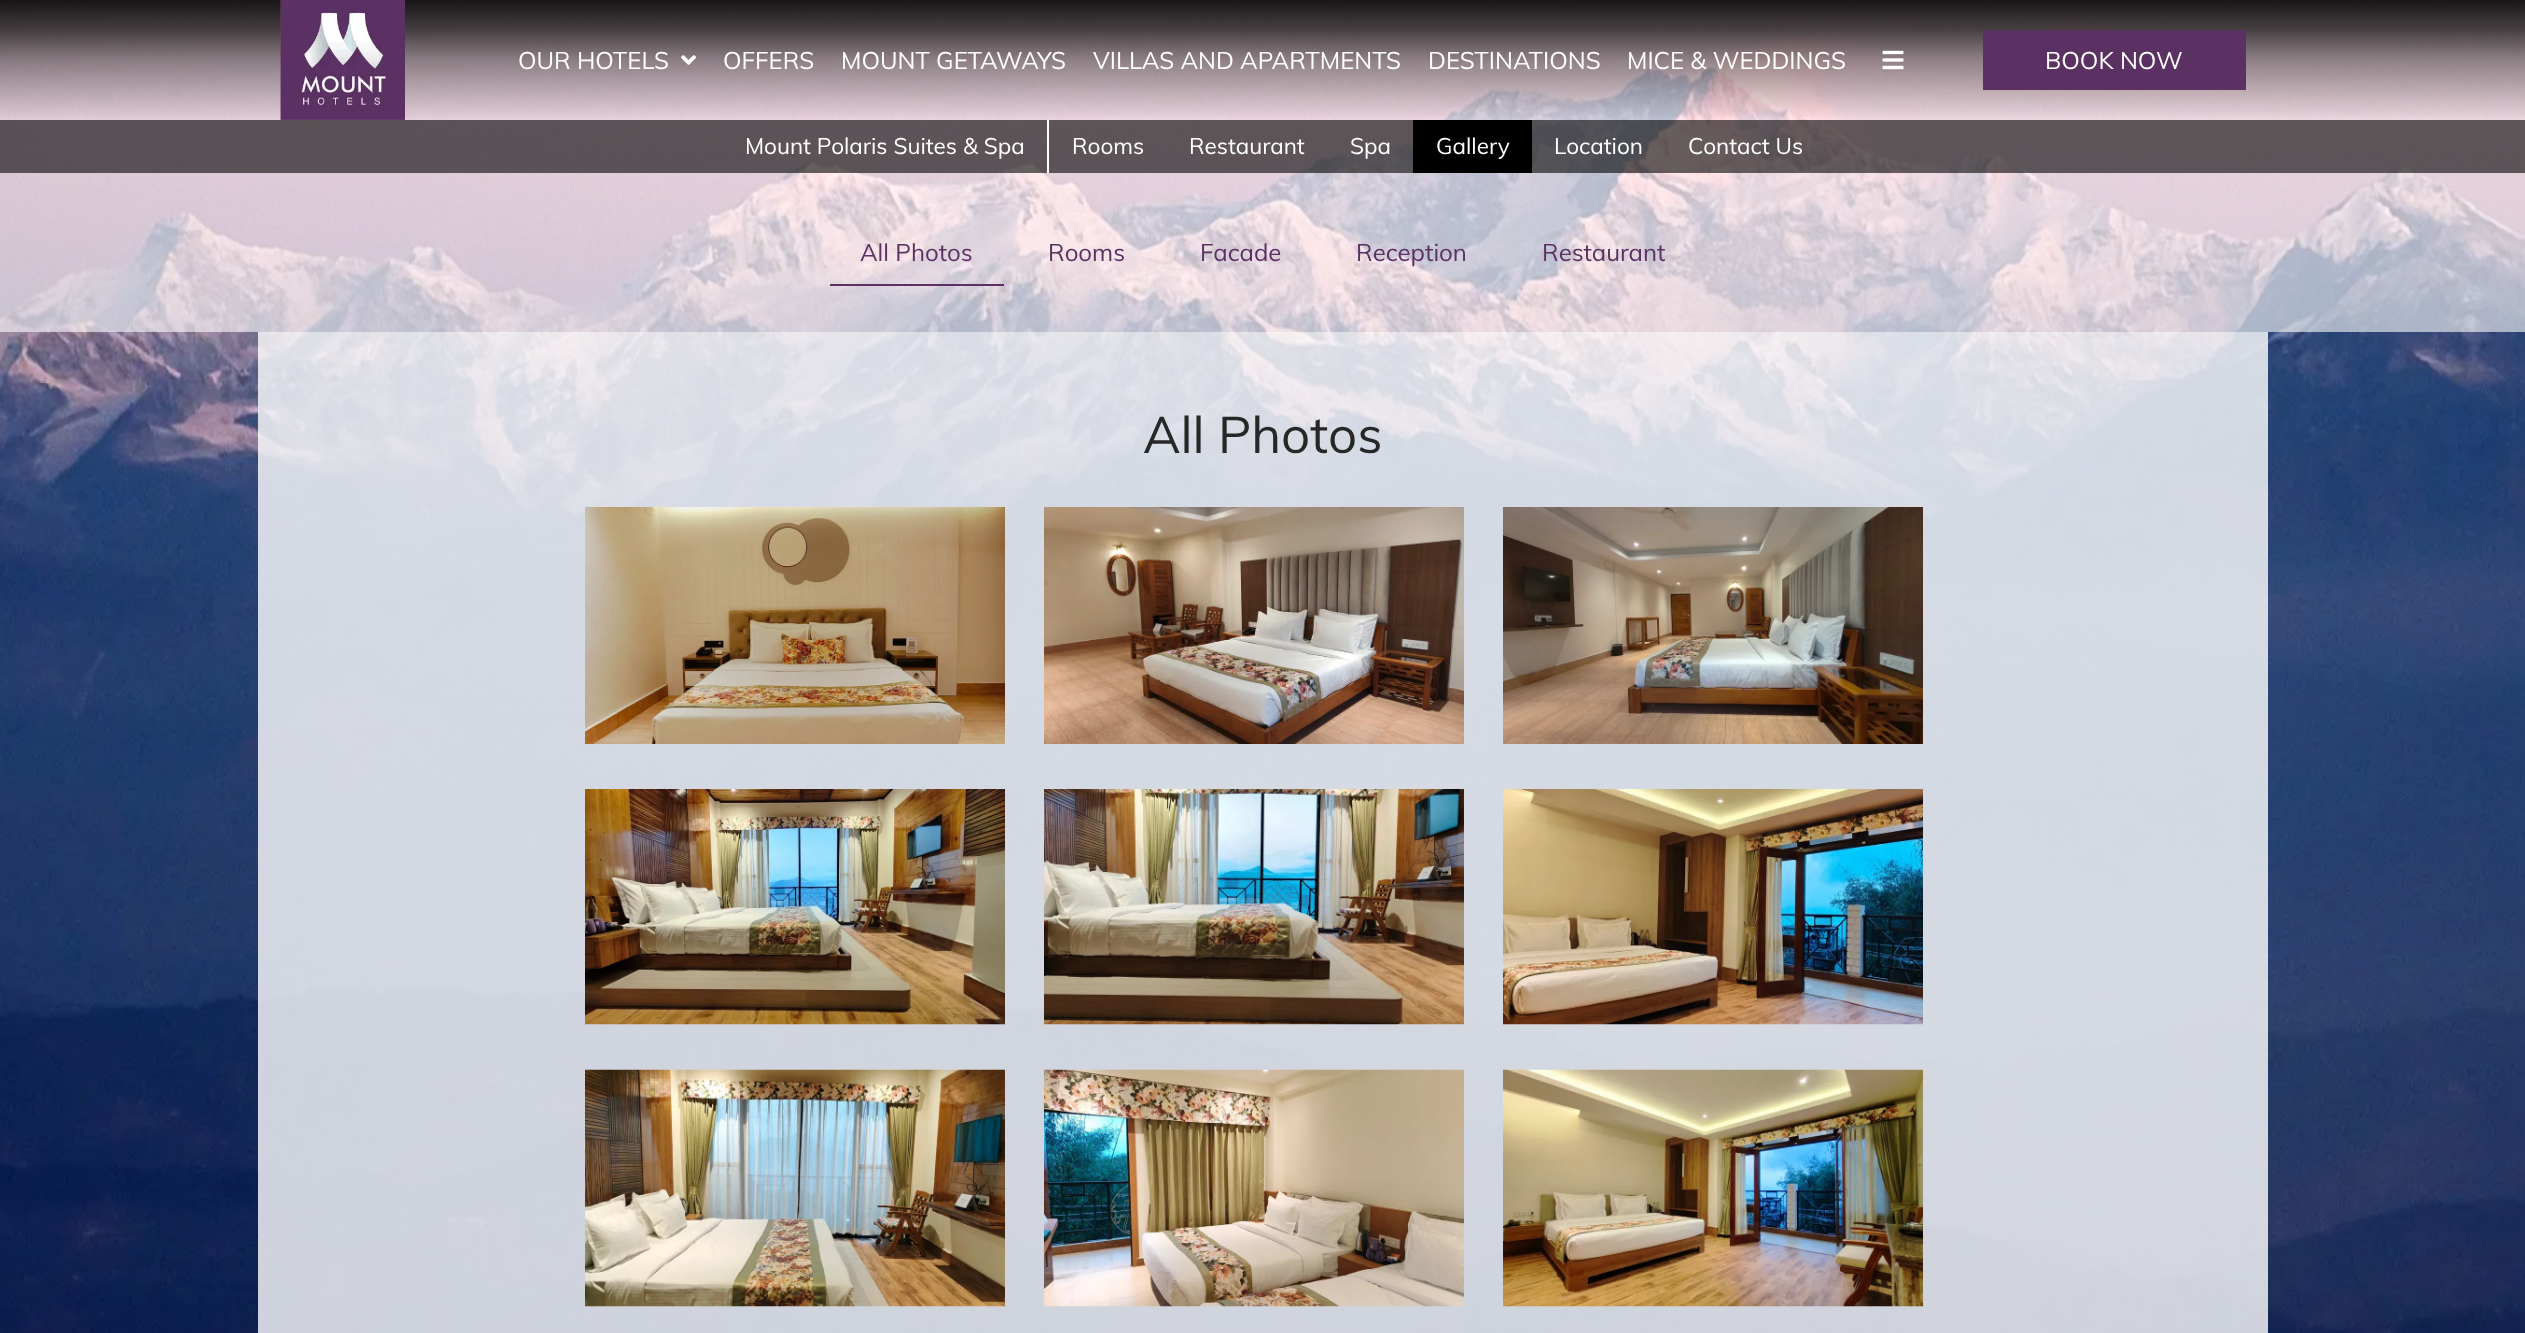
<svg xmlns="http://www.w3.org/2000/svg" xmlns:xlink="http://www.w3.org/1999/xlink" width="2525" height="1333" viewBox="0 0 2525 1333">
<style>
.cls-1{font:24px Muli;fill:#ffffff}
.cls-2{font:22.5px Muli;fill:#ffffff}
.cls-3{font:24px Muli;fill:#5b3163}
.cls-4{font:51px Muli;fill:#272727}
</style>
<defs>
<linearGradient id="g1" gradientUnits="userSpaceOnUse" x1="1263" y1="0" x2="1263" y2="120"><stop offset="0" stop-color="#000000" stop-opacity="0.9"/><stop offset="0.25" stop-color="#000000" stop-opacity="0.7"/><stop offset="0.5" stop-color="#000000" stop-opacity="0.4"/><stop offset="0.75" stop-color="#000000" stop-opacity="0.2"/><stop offset="1" stop-color="#000000" stop-opacity="0"/></linearGradient>
</defs>
<rect width="100%" height="100%" fill="#ffffff"/>
<image xlink:href="image0.png" x="0" y="0" width="2525" height="1333"/>
<rect fill="#ffffff" fill-opacity="0.6" x="0" y="0" width="2525" height="332"/>
<rect fill="url(#g1)" x="0" y="0" width="2525" height="117"/>
<image xlink:href="image1.png" x="280" y="0" width="125" height="120"/>
<image xlink:href="image2.png" x="681" y="55" width="15" height="10"/>
<image xlink:href="image3.png" x="1882" y="50" width="22" height="20"/>
<rect fill="#5b3163" x="1983" y="30" width="263" height="60"/>
<rect fill="#000000" fill-opacity="0.6" x="0" y="120" width="2525" height="53"/>
<rect fill="#ffffff" x="1047" y="120" width="2" height="53"/>
<rect fill="#000000" x="1413" y="120" width="119" height="53"/>
<rect fill="#5b3163" x="830" y="284" width="174" height="2"/>
<rect fill="#ffffff" fill-opacity="0.8" x="258" y="332" width="2010" height="1001"/>
<image xlink:href="image4.png" x="585" y="507" width="420" height="237"/>
<image xlink:href="image5.png" x="1044" y="507" width="420" height="237"/>
<image xlink:href="image6.png" x="1503" y="507" width="420" height="237"/>
<image xlink:href="image7.png" x="585" y="789" width="420" height="236"/>
<image xlink:href="image8.png" x="1044" y="789" width="420" height="236"/>
<image xlink:href="image9.png" x="1503" y="789" width="420" height="236"/>
<image xlink:href="image10.png" x="585" y="1069" width="420" height="238"/>
<image xlink:href="image11.png" x="1044" y="1069" width="420" height="238"/>
<image xlink:href="image12.png" x="1503" y="1069" width="420" height="238"/>
<text class="cls-1" x="518" y="69">OUR HOTELS</text>
<text class="cls-1" x="723" y="69">OFFERS</text>
<text class="cls-1" x="841" y="69">MOUNT GETAWAYS</text>
<text class="cls-1" x="1093" y="69">VILLAS AND APARTMENTS</text>
<text class="cls-1" x="1428" y="69">DESTINATIONS</text>
<text class="cls-1" x="1627" y="69">MICE &amp; WEDDINGS</text>
<text class="cls-1" x="2045" y="69">BOOK NOW</text>
<text class="cls-2" x="745" y="154">Mount Polaris Suites &amp; Spa</text>
<text class="cls-2" x="1072" y="154">Rooms</text>
<text class="cls-2" x="1189" y="154">Restaurant</text>
<text class="cls-2" x="1350" y="154">Spa</text>
<text class="cls-2" x="1436" y="154">Gallery</text>
<text class="cls-2" x="1554" y="154">Location</text>
<text class="cls-2" x="1688" y="154">Contact Us</text>
<text class="cls-3" x="860" y="261">All Photos</text>
<text class="cls-3" x="1048" y="261">Rooms</text>
<text class="cls-3" x="1200" y="261">Facade</text>
<text class="cls-3" x="1356" y="261">Reception</text>
<text class="cls-3" x="1542" y="261">Restaurant</text>
<text class="cls-4" x="1143" y="453">All Photos</text>
</svg>
